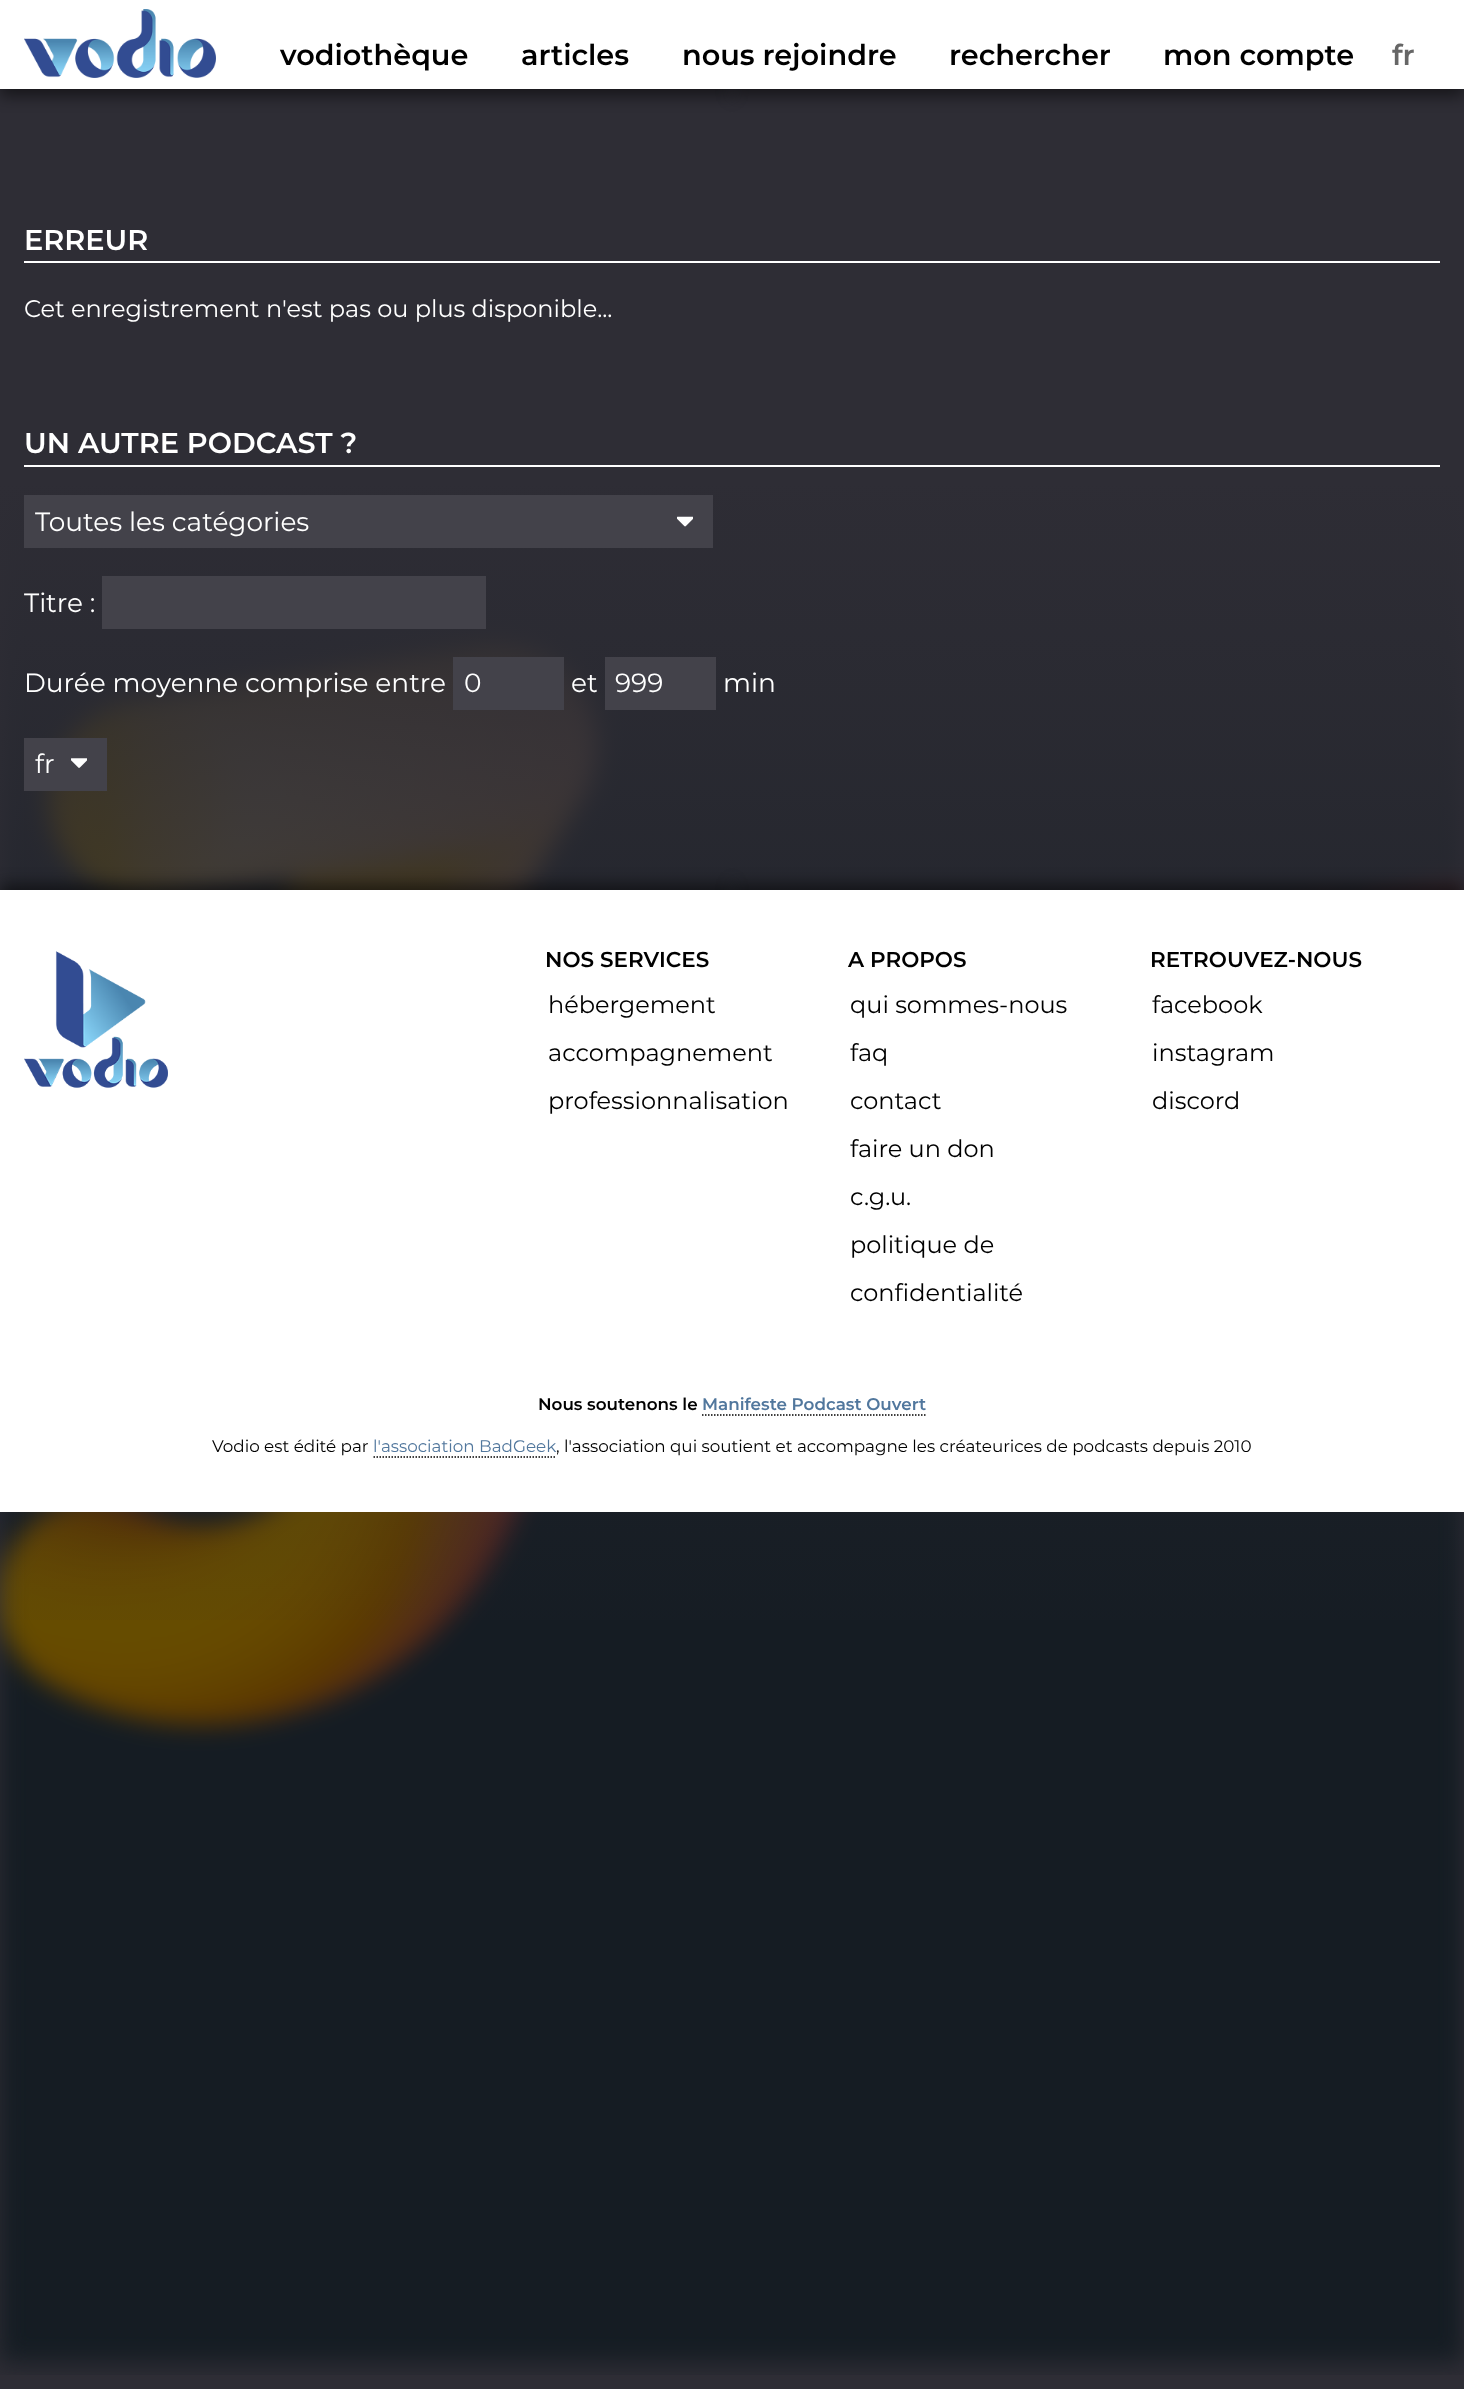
<svg xmlns="http://www.w3.org/2000/svg" xmlns:xlink="http://www.w3.org/1999/xlink" width="1464" height="2389" viewBox="0 0 1464 2389">
<style>
.cls-1{font:600 28.75px Montserrat;fill:#000000}
.cls-2{font:600 28.75px Montserrat;fill:#666666}
.cls-3{font:600 28.75px Montserrat;fill:#ffffff}
.cls-4{font:24px Montserrat;fill:#ffffff}
.cls-5{font:26.4px Montserrat;fill:#ffffff}
.cls-6{font:600 21.5px Montserrat;fill:#000000}
.cls-7{font:24px Montserrat;fill:#000000}
.cls-8{font:600 16.8px Montserrat;fill:#000000}
.cls-9{font:600 16.8px Montserrat;fill:#51779d}
.cls-10{font:16.8px Montserrat;fill:#000000}
.cls-11{font:16.8px Montserrat;fill:#51779d}
</style>
<defs>
<linearGradient id="g1" gradientUnits="userSpaceOnUse" x1="732" y1="0" x2="732" y2="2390"><stop offset="0.2" stop-color="#2e2d35"/><stop offset="0.3" stop-color="#2e2d35" stop-opacity="0.82"/><stop offset="0.7" stop-color="#2e2d35" stop-opacity="0"/></linearGradient>
<clipPath id="clip1"><rect x="35" y="506" width="640" height="31"/></clipPath>
</defs>
<rect width="100%" height="100%" fill="#2e2d35"/>
<rect fill="#000000" fill-opacity="0.5" filter="blur(7.5px)" x="0" y="66" width="732" height="30"/>
<rect fill="#000000" fill-opacity="0.5" filter="blur(7.5px)" x="732" y="66" width="732" height="30"/>
<rect fill="#ffffff" x="0" y="0" width="1464" height="89"/>
<image xlink:href="image0.png" x="24" y="9" width="192" height="69"/>
<rect fill="#ffffff" x="24" y="261" width="1416" height="2"/>
<rect fill="#ffffff" x="24" y="465" width="1416" height="2"/>
<image xlink:href="image3.png" x="0" y="486" width="1464" height="1889"/>
<rect fill="url(#g1)" x="0" y="486" width="1464" height="1134"/>
<rect fill="#43424a" x="24" y="495" width="689" height="53"/>
<image xlink:href="image1.png" x="677" y="516" width="16" height="11"/>
<rect fill="#43424a" x="102" y="576" width="384" height="53"/>
<rect fill="#43424a" x="453" y="657" width="111" height="53"/>
<rect fill="#43424a" x="605" y="657" width="111" height="53"/>
<rect fill="#43424a" x="24" y="738" width="83" height="53"/>
<image xlink:href="image2.png" x="71" y="758" width="16" height="10"/>
<rect fill="#000000" fill-opacity="0.5" filter="blur(7.5px)" x="0" y="884" width="732" height="30"/>
<rect fill="#000000" fill-opacity="0.5" filter="blur(7.5px)" x="732" y="884" width="732" height="30"/>
<rect fill="#ffffff" x="0" y="890" width="1464" height="622"/>
<image xlink:href="image4.png" x="24" y="951" width="144" height="137"/>
<path fill="none" stroke="#000000" stroke-width="1.5" stroke-dasharray="1.5 1.5" d="M702 1415H925.5"/>
<path fill="none" stroke="#000000" stroke-width="1.5" stroke-dasharray="1.5 1.5" d="M373.5 1457H556.5"/>
<text class="cls-1" x="280" y="65">vodiothèque</text>
<text class="cls-1" x="521" y="65">articles</text>
<text class="cls-1" x="682" y="65">nous rejoindre</text>
<text class="cls-1" x="949" y="65">rechercher</text>
<text class="cls-1" x="1163" y="65">mon compte</text>
<text class="cls-2" x="1392" y="65">fr</text>
<text class="cls-3" x="24" y="250">ERREUR</text>
<text class="cls-4" x="24" y="317">Cet enregistrement n'est pas ou plus disponible...</text>
<text class="cls-3" x="24" y="453">UN AUTRE PODCAST ?</text>
<g clip-path="url(#clip1)">
<text class="cls-5" x="35" y="531">Toutes les catégories</text>
</g>
<text class="cls-5" x="24" y="612">Titre :</text>
<text class="cls-5" x="24" y="692">Durée moyenne comprise entre</text>
<text class="cls-5" x="464" y="692">0</text>
<text class="cls-5" x="571" y="692">et</text>
<text class="cls-5" x="615" y="692">999</text>
<text class="cls-5" x="723" y="692">min</text>
<text class="cls-5" x="35" y="773">fr</text>
<text class="cls-6" x="545" y="967">NOS SERVICES</text>
<text class="cls-7" x="548" y="1013">hébergement</text>
<text class="cls-7" x="548" y="1061">accompagnement</text>
<text class="cls-7" x="548" y="1109">professionnalisation</text>
<text class="cls-6" x="848" y="967">A PROPOS</text>
<text class="cls-7" x="850" y="1013">qui sommes-nous</text>
<text class="cls-7" x="850" y="1061">faq</text>
<text class="cls-7" x="850" y="1109">contact</text>
<text class="cls-7" x="850" y="1157">faire un don</text>
<text class="cls-7" x="850" y="1205">c.g.u.</text>
<text class="cls-7" x="850" y="1253">politique de</text>
<text class="cls-7" x="850" y="1301">confidentialité</text>
<text class="cls-6" x="1150" y="967">RETROUVEZ-NOUS</text>
<text class="cls-7" x="1152" y="1013">facebook</text>
<text class="cls-7" x="1152" y="1061">instagram</text>
<text class="cls-7" x="1152" y="1109">discord</text>
<text class="cls-8" x="538" y="1410">Nous soutenons le</text>
<text class="cls-9" x="702" y="1410">Manifeste Podcast Ouvert</text>
<text class="cls-10" x="212" y="1452">Vodio est édité par</text>
<text class="cls-11" x="373" y="1452">l'association BadGeek</text>
<text class="cls-10" x="556" y="1452">, l'association qui soutient et accompagne les créateurices de podcasts depuis 2010</text>
</svg>
